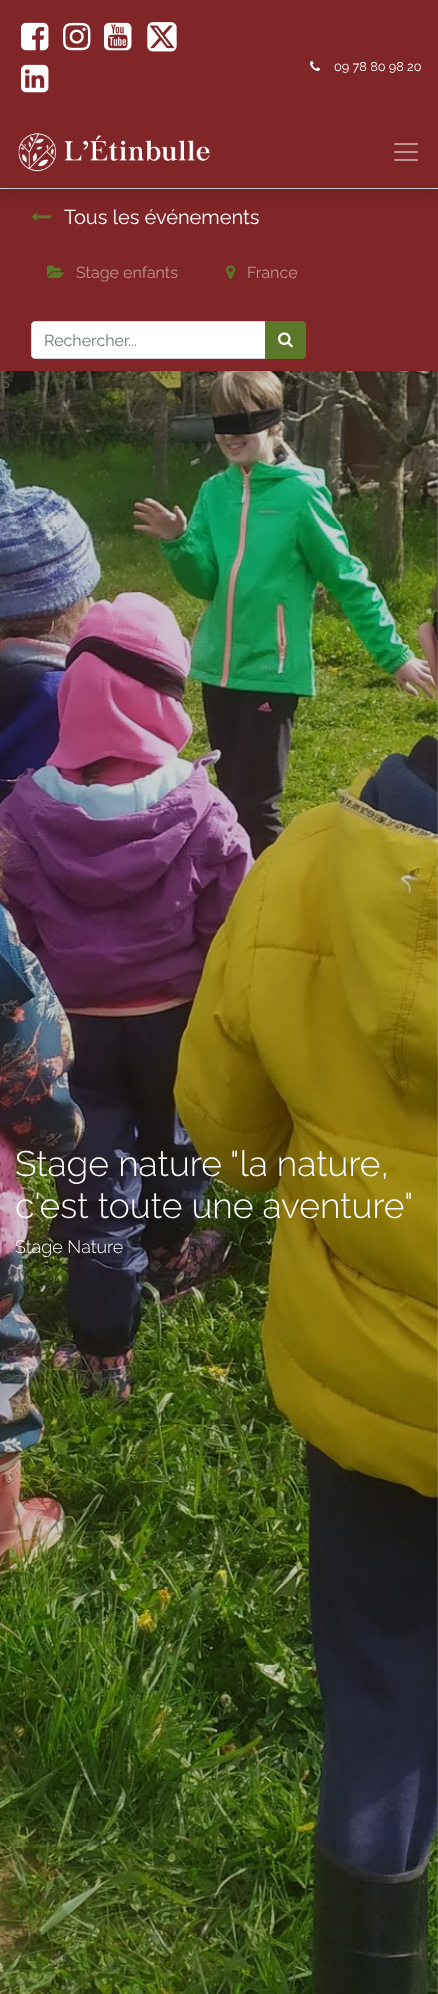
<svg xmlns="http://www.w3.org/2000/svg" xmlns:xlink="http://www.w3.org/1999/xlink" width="438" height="1994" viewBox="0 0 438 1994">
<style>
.cls-1{font:12.75px Raleway;fill:#ffffff}
.cls-2{font:20px Raleway;fill:#ffffff}
.cls-3{font:16px Raleway;fill:#c09394}
.cls-4{font:16px Raleway;fill:#6c757d}
.cls-5{font:16px Raleway;fill:#616058}
.cls-6{font:300 35.5px Raleway;fill:#ffffff}
.cls-7{font:300 18px Raleway;fill:#ffffff}
</style>
<rect width="100%" height="100%" fill="#ffffff"/>
<rect fill="#000000" fill-opacity="0.07" filter="blur(2px)" x="0" y="190" width="438" height="183"/>
<rect fill="#802629" x="0" y="189" width="438" height="182"/>
<rect fill="#dee2e6" x="0" y="188" width="438" height="1"/>
<image xlink:href="image8.png" x="31" y="212" width="20" height="9"/>
<rect fill="#000000" fill-opacity="0.15" filter="blur(8px)" x="0" y="8" width="438" height="188"/>
<rect fill="#802629" x="0" y="0" width="438" height="188"/>
<image xlink:href="image0.png" x="21" y="22" width="28" height="29"/>
<image xlink:href="image1.png" x="63" y="22" width="28" height="29"/>
<image xlink:href="image2.png" x="104" y="22" width="28" height="29"/>
<image xlink:href="image3.png" x="147" y="22" width="30" height="30"/>
<image xlink:href="image4.png" x="21" y="64" width="28" height="29"/>
<image xlink:href="image5.png" x="310" y="61" width="10" height="10"/>
<image xlink:href="image6.png" x="18" y="133" width="192" height="39"/>
<image xlink:href="image7.png" x="394" y="143" width="24" height="18"/>
<image xlink:href="image9.png" x="47" y="265" width="17" height="13"/>
<image xlink:href="image10.png" x="226" y="265" width="10" height="15"/>
<path fill="#ffffff" stroke="#ced4da" d="M35 321.5H265.5V358.5H35C33 358.5 31.5 357 31.5 355V325C31.5 323 33 321.5 35 321.5Z"/>
<path fill="#5c782a" stroke="#5c782a" d="M265.5 321.5H302C304 321.5 305.5 323 305.5 325V355C305.5 357 304 358.5 302 358.5H265.5Z"/>
<image xlink:href="image11.png" x="278" y="332" width="15" height="16"/>
<image xlink:href="image12.png" x="0" y="371" width="438" height="1623"/>
<rect fill="#000000" fill-opacity="0.18" x="0" y="371" width="438" height="1623"/>
<text class="cls-1" x="334" y="71">09 78 80 98 20</text>
<text class="cls-2" x="64" y="224">Tous les événements</text>
<text class="cls-3" x="76" y="278">Stage enfants</text>
<text class="cls-3" x="247" y="278">France</text>
<text class="cls-4" x="44" y="346">Rechercher...</text>
<text class="cls-5" x="0" y="388">S</text>
<text class="cls-6"><tspan x="15" y="1176">Stage nature "la nature,</tspan><tspan x="15" y="1218">c'est toute une aventure"</tspan></text>
<text class="cls-7" x="15" y="1253">Stage Nature</text>
</svg>
